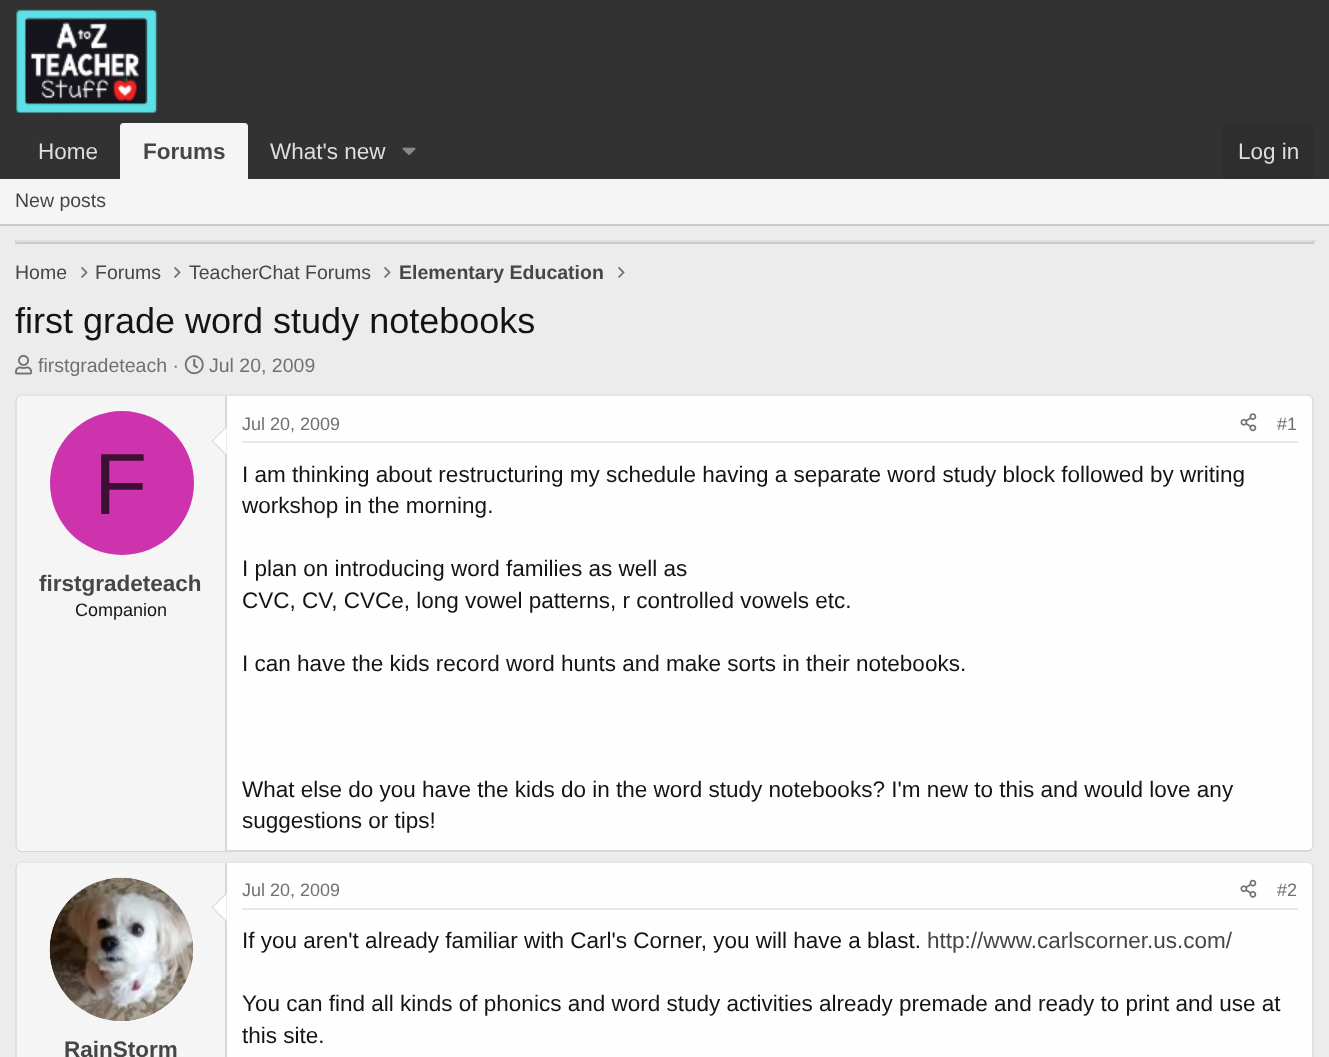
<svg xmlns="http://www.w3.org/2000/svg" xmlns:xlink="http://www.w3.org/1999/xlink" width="1329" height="1057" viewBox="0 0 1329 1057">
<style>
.cls-1{font:22.5px Liberation Sans;fill:#dedede}
.cls-2{font:bold 22.5px Liberation Sans;fill:#464646}
.cls-3{font:19.5px Liberation Sans;fill:#464646}
.cls-4{font:bold 19.5px Liberation Sans;fill:#464646}
.cls-5{font:36px Liberation Sans;fill:#141414}
.cls-6{font:19.5px Liberation Sans;fill:#717171}
.cls-7{font:87px Liberation Sans;fill:#3d0f34}
.cls-8{font:18px Liberation Sans;fill:#141414}
.cls-9{font:18px Liberation Sans;fill:#717171}
.cls-10{font:22.5px Liberation Sans;fill:#141414}
.cls-11{font:22.5px Liberation Sans;fill:#464646}
</style>
<rect width="100%" height="100%" fill="#ececec"/>
<rect fill="#323232" x="0" y="0" width="1329" height="179"/>
<image xlink:href="image0.png" x="16" y="9" width="142" height="105"/>
<path fill="#f5f5f5" d="M123 123H245C246.5 123 248 124.5 248 126V179H120V126C120 124.5 121.5 123 123 123Z"/>
<image xlink:href="image1.png" x="402" y="147" width="14" height="9"/>
<path fill="#2e2e2e" d="M1229 123H1308C1311.5 123 1314 125.5 1314 129V179H1223V129C1223 125.5 1225.5 123 1229 123Z"/>
<rect fill="#f5f5f5" x="0" y="179" width="1329" height="45"/>
<rect fill="#cbcbcb" x="0" y="224" width="1329" height="2"/>
<rect fill="#dfdfdf" x="15" y="240" width="1299" height="2"/>
<rect fill="#d8d8d8" x="1313" y="240" width="2" height="3"/>
<rect fill="#cbcbcb" x="15" y="242" width="1299" height="2"/>
<rect fill="#d8d8d8" x="15" y="240" width="2" height="3"/>
<image xlink:href="image2.png" x="81" y="267" width="7" height="11"/>
<image xlink:href="image2.png" x="174" y="267" width="7" height="11"/>
<image xlink:href="image2.png" x="384" y="267" width="7" height="11"/>
<image xlink:href="image2.png" x="618" y="267" width="7" height="11"/>
<image xlink:href="image3.png" x="15" y="354" width="18" height="21"/>
<image xlink:href="image4.png" x="184" y="355" width="20" height="20"/>
<rect fill="#fefefe" x="15" y="395" width="1299" height="457" rx="6"/>
<path fill="none" stroke="#dfdfdf" stroke-width="1.5" d="M17.5 397C18.5 396 19.5 395 21 395H1308C1309.5 395 1310.5 396 1311.5 397"/>
<path fill="none" stroke="#d8d8d8" stroke-width="1.5" d="M1311.5 397C1312.5 398 1313 399 1313 400.5V846C1313 847.5 1312.5 848.5 1311.5 849.5"/>
<path fill="none" stroke="#cbcbcb" stroke-width="1.5" d="M1311.5 849.5C1310.5 850.5 1309.5 851 1308 851H21C19.5 851 18.5 850.5 17.5 849.5"/>
<path fill="none" stroke="#d8d8d8" stroke-width="1.5" d="M17.5 849.5C16.5 848.5 16 847.5 16 846V400.5C16 399 16.5 398 17.5 397"/>
<path fill="#f5f5f5" d="M22 396H227V851H22C19 851 17 849 17 846V401C17 398 19 396 22 396Z"/>
<rect fill="#d8d8d8" x="225" y="396" width="2" height="455"/>
<path fill="#d8d8d8" d="M226.5 426V456L211.5 441Z"/>
<path fill="#fefefe" d="M226.5 427.5V454.5L213 441Z"/>
<circle fill="#cc33ad" cx="122" cy="483" r="72"/>
<rect fill="#e7e7e7" x="242" y="441" width="1056" height="2"/>
<image xlink:href="image5.png" x="1240" y="413" width="17" height="19"/>
<rect fill="#fefefe" x="15" y="861" width="1299" height="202" rx="6"/>
<path fill="none" stroke="#dfdfdf" stroke-width="1.5" d="M17.5 863.5C18.5 862.5 19.5 862 21 862H1308C1309.5 862 1310.5 862.5 1311.5 863.5"/>
<path fill="none" stroke="#d8d8d8" stroke-width="1.5" d="M1311.5 863.5C1312.5 864.5 1313 865.5 1313 867V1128.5L1311.5 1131.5"/>
<path fill="none" stroke="#d8d8d8" stroke-width="1.5" d="M17.5 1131.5C16.5 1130.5 16 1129.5 16 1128V866.5L17.5 863.5"/>
<rect fill="#e7e7e7" x="242" y="908" width="1056" height="2"/>
<image xlink:href="image6.png" x="1240" y="879" width="17" height="19"/>
<path fill="#f5f5f5" d="M22 863H227V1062H22C19 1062 17 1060 17 1057V868C17 865 19 863 22 863Z"/>
<rect fill="#d8d8d8" x="225" y="863" width="2" height="194"/>
<circle fill="#fefefe" cx="122" cy="950" r="72"/>
<image xlink:href="image7.png" x="49" y="877" width="145" height="145"/>
<path fill="#d8d8d8" d="M226.5 892.5V922.5L211.5 907.5Z"/>
<path fill="#fefefe" d="M226.5 894V921L213 907.5Z"/>
<text class="cls-1" x="38" y="159">Home</text>
<text class="cls-2" x="143" y="159">Forums</text>
<text class="cls-1" x="270" y="159">What's new</text>
<text class="cls-1" x="1238" y="159">Log in</text>
<text class="cls-3" x="15" y="207">New posts</text>
<text class="cls-3" x="15" y="279">Home</text>
<text class="cls-3" x="95" y="279">Forums</text>
<text class="cls-3" x="189" y="279">TeacherChat Forums</text>
<text class="cls-4" x="399" y="279">Elementary Education</text>
<text class="cls-5" x="15" y="333">first grade word study notebooks</text>
<text class="cls-6" x="38" y="372">firstgradeteach ·</text>
<text class="cls-6" x="209" y="372">Jul 20, 2009</text>
<text class="cls-7" x="94" y="514">F</text>
<text class="cls-2" x="39" y="591">firstgradeteach</text>
<text class="cls-8" x="75" y="616">Companion</text>
<text class="cls-9" x="242" y="430">Jul 20, 2009</text>
<text class="cls-9" x="1277" y="430">#1</text>
<text class="cls-10"><tspan x="242" y="482">I am thinking about restructuring my schedule having a separate word study block followed by writing</tspan><tspan x="242" y="513">workshop in the morning.</tspan></text>
<text class="cls-10"><tspan x="242" y="576">I plan on introducing word families as well as</tspan><tspan x="242" y="608">CVC, CV, CVCe, long vowel patterns, r controlled vowels etc.</tspan></text>
<text class="cls-10" x="242" y="671">I can have the kids record word hunts and make sorts in their notebooks.</text>
<text class="cls-10"><tspan x="242" y="797">What else do you have the kids do in the word study notebooks? I'm new to this and would love any</tspan><tspan x="242" y="828">suggestions or tips!</tspan></text>
<text class="cls-9" x="242" y="896">Jul 20, 2009</text>
<text class="cls-9" x="1277" y="896">#2</text>
<text class="cls-10" x="242" y="948">If you aren't already familiar with Carl's Corner, you will have a blast.</text>
<text class="cls-11" x="927" y="948">http://www.carlscorner.us.com/</text>
<text class="cls-10"><tspan x="242" y="1011">You can find all kinds of phonics and word study activities already premade and ready to print and use at</tspan><tspan x="242" y="1043">this site.</tspan></text>
<text class="cls-2" x="64" y="1057">RainStorm</text>
</svg>
